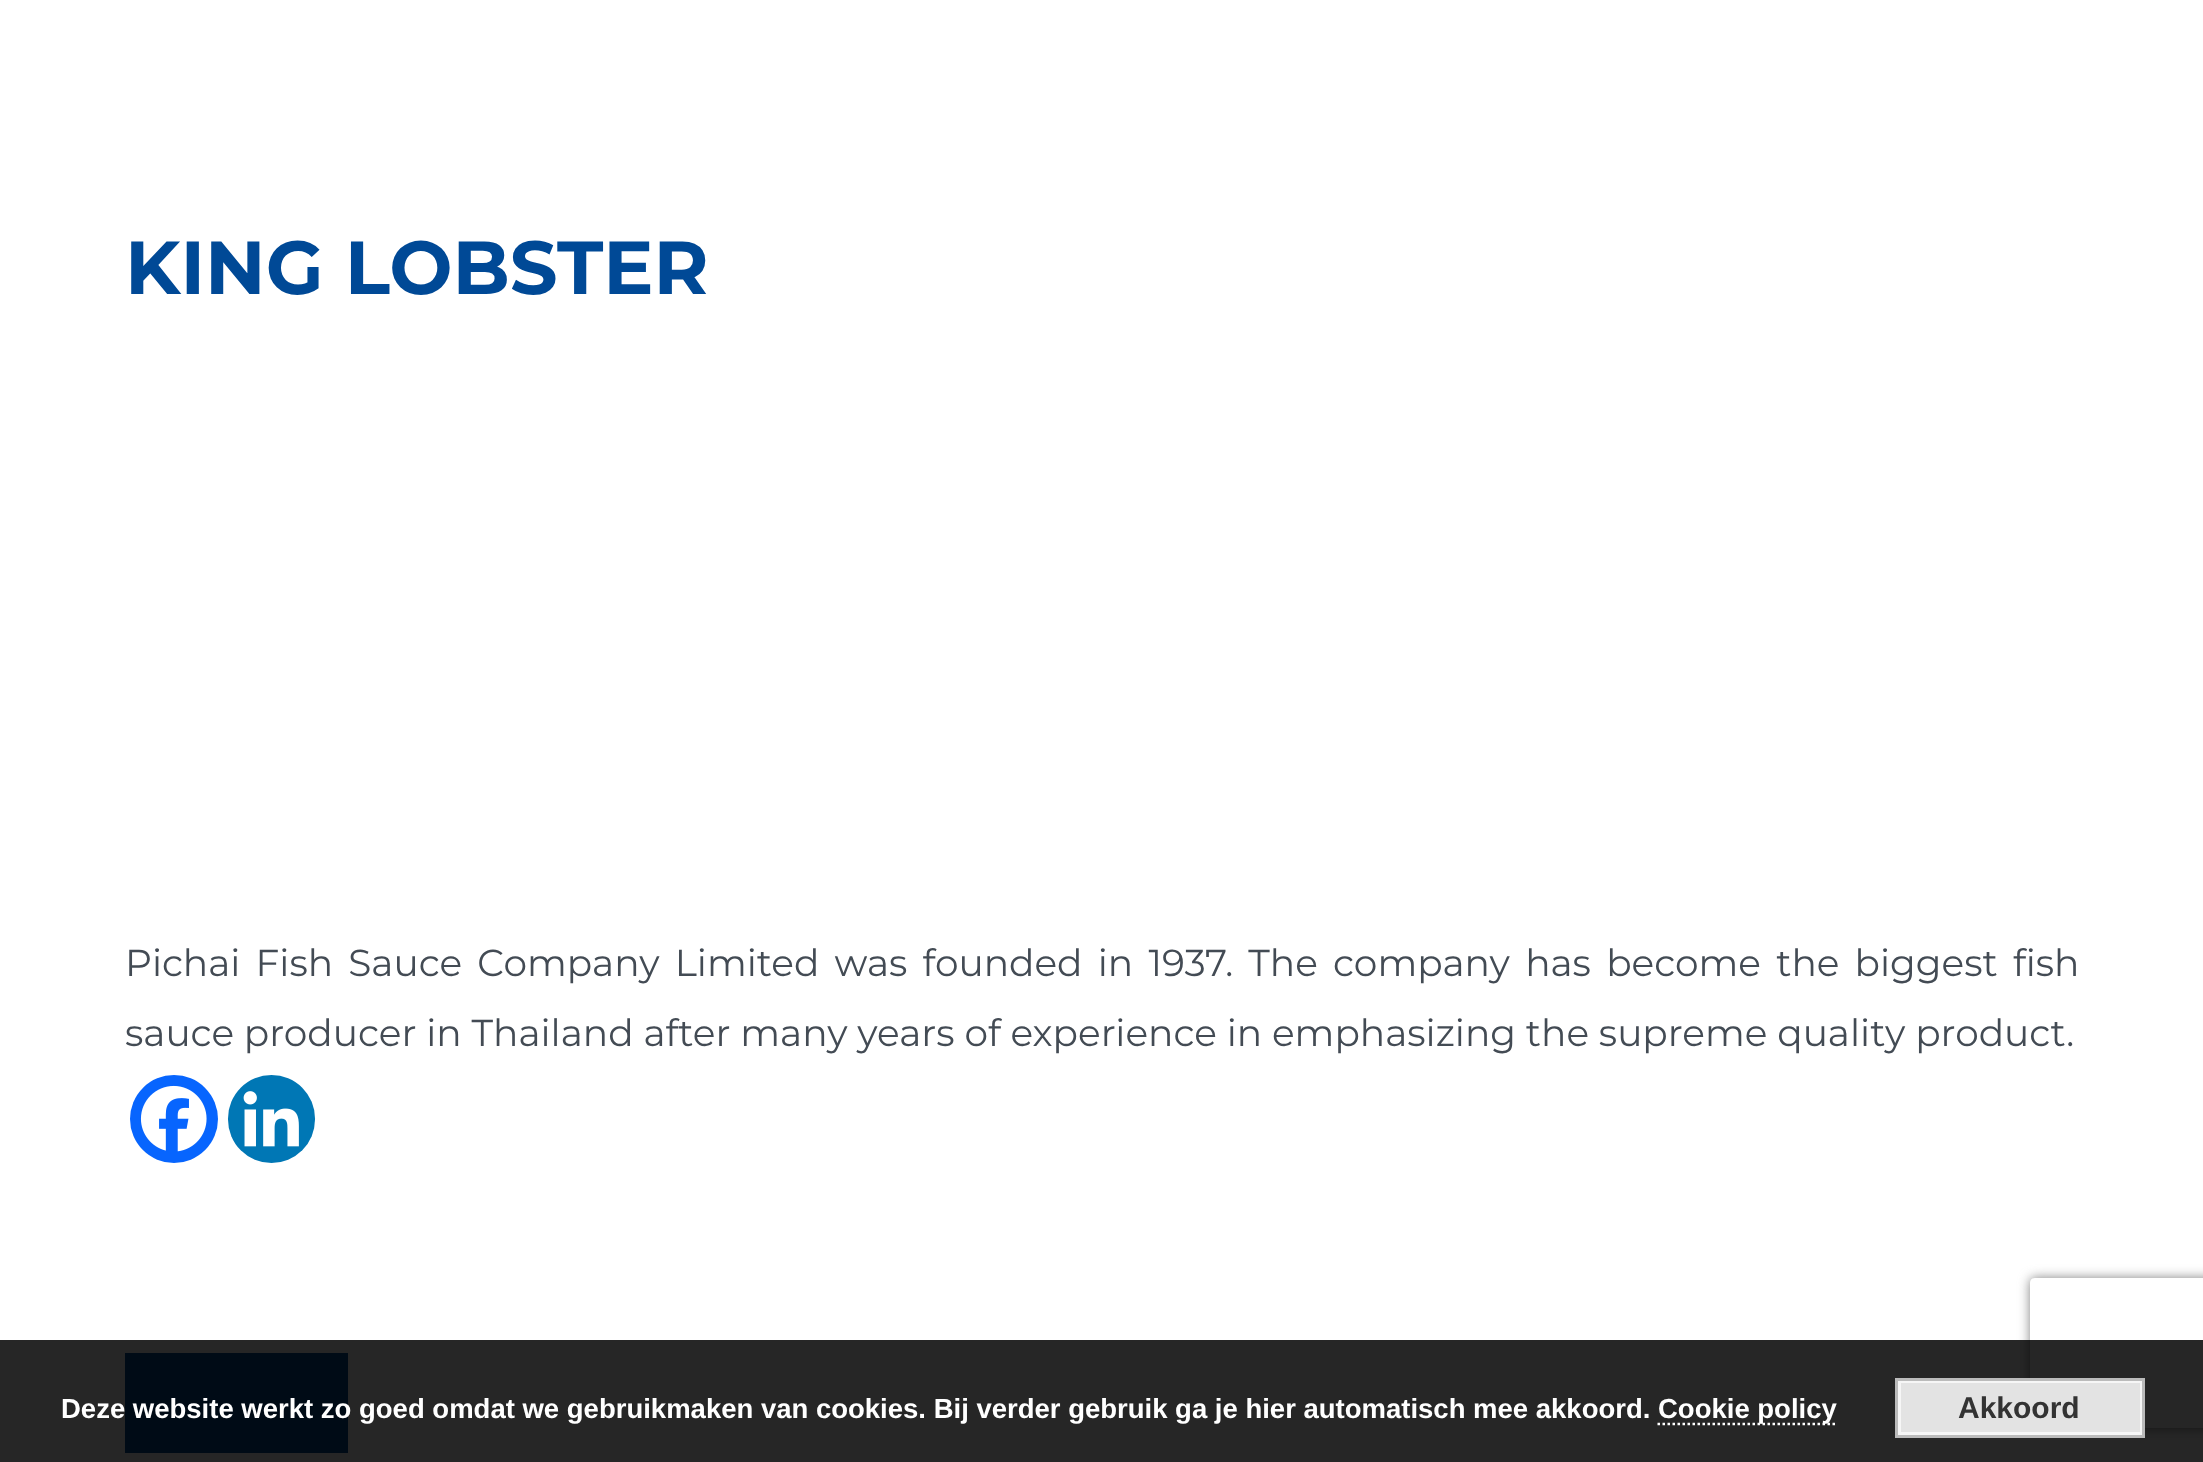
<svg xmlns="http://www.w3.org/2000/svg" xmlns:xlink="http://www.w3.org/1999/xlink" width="2203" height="1462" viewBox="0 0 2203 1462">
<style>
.cls-1{font:bold 75px Montserrat;fill:#004996}
.cls-2{font:37.5px Montserrat;fill:#434b54}
.cls-3{font:bold 27.5px Liberation Sans;fill:#ffffff}
.cls-4{font:bold 30px Liberation Sans;fill:#333333}
</style>
<defs>
<clipPath id="clip1"><path d="M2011 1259H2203V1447H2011ZM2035 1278H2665C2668 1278 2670 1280 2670 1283V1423C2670 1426 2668 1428 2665 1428H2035C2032 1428 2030 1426 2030 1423V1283C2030 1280 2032 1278 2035 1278Z" clip-rule="evenodd"/></clipPath>
</defs>
<rect width="100%" height="100%" fill="#ffffff"/>
<circle fill="#0765fe" cx="174" cy="1119" r="44"/>
<image xlink:href="image0.png" x="140" y="1085" width="67" height="67"/>
<rect fill="#0077b5" x="228" y="1075" width="87" height="88" rx="43.5"/>
<image xlink:href="image1.png" x="243" y="1091" width="56" height="56"/>
<rect fill="#004996" x="125" y="1353" width="223" height="100"/>
<g clip-path="url(#clip1)">
<rect fill="#808080" filter="blur(6px)" x="2030" y="1278" width="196" height="150" rx="5"/>
</g>
<rect fill="#000000" fill-opacity="0.85" x="0" y="1340" width="2203" height="122"/>
<path fill="none" stroke="#ffffff" stroke-width="2.5" stroke-dasharray="2.5 2.5" d="M1657.5 1424H1837.5"/>
<rect fill="#e3e3e3" stroke="#f6f6f6" stroke-width="3" x="1899.5" y="1381.5" width="242" height="52"/>
<rect fill="none" stroke="#bbbbbb" stroke-width="3" x="1896.5" y="1379.5" width="247" height="57"/>
<text class="cls-1" x="125" y="294">KING LOBSTER</text>
<text class="cls-2"><tspan x="125" y="976" word-spacing="5.4">Pichai Fish Sauce Company Limited was founded in 1937. The company has become the biggest fish</tspan><tspan x="125" y="1046">sauce producer in Thailand after many years of experience in emphasizing the supreme quality product.</tspan></text>
<text class="cls-3" x="61" y="1418">Deze website werkt zo goed omdat we gebruikmaken van cookies. Bij verder gebruik ga je hier automatisch mee akkoord.</text>
<text class="cls-3" x="1658" y="1418">Cookie policy</text>
<text class="cls-4" x="1958" y="1418">Akkoord</text>
</svg>
